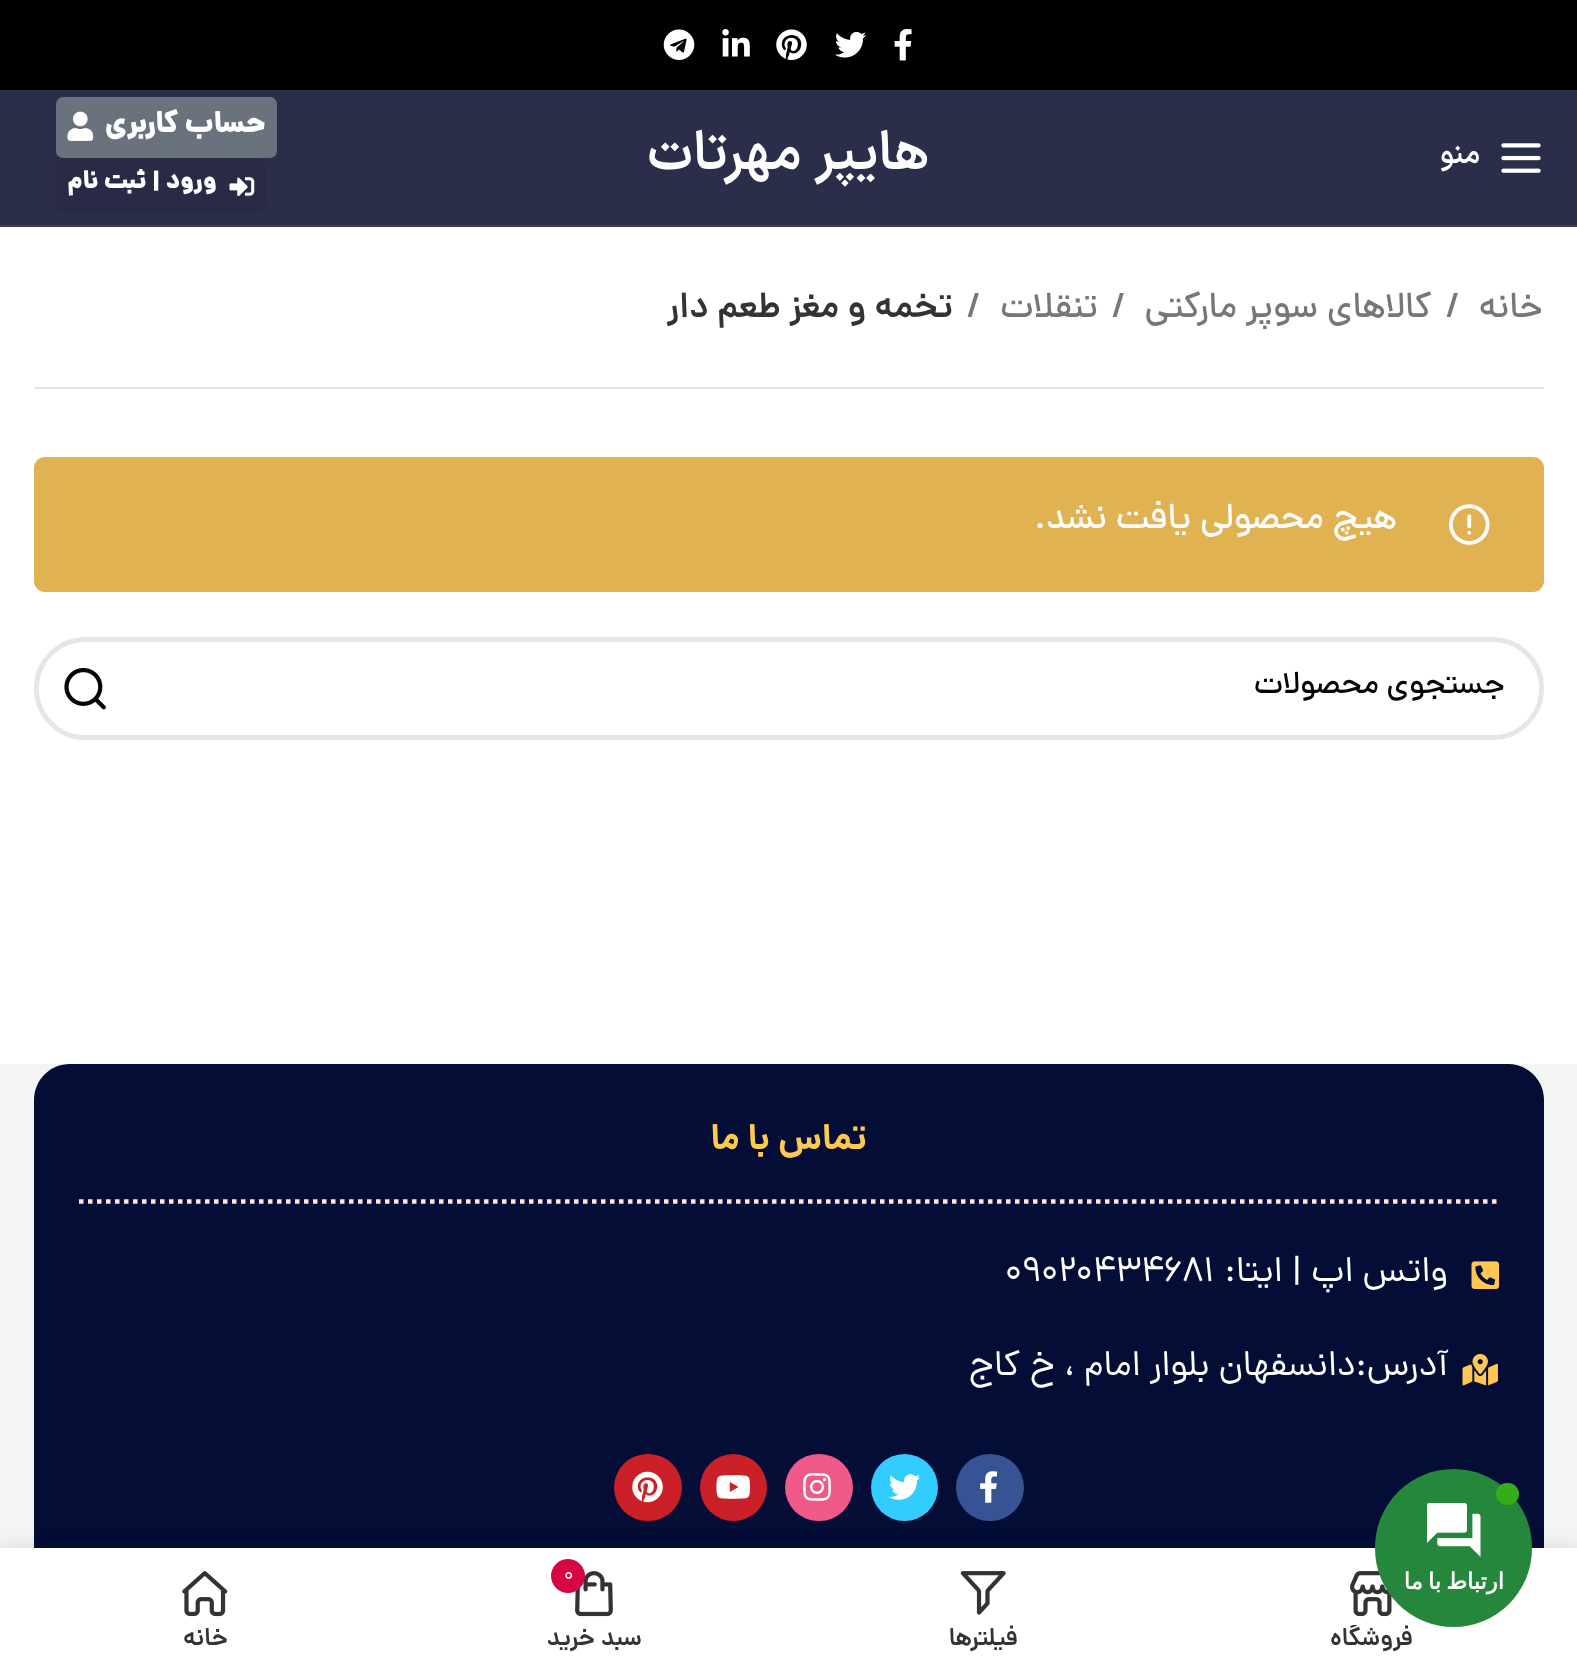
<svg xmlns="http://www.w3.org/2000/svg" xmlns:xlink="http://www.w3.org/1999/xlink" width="1577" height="1671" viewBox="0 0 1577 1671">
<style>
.cls-1{font:600 29.25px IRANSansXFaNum;direction:rtl;fill:#ffffff}
.cls-2{font:600 54px IRANSansXFaNum;direction:rtl;fill:#ffffff}
.cls-3{font:900 29.25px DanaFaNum;direction:rtl;fill:#ffffff}
.cls-4{font:900 24.75px DanaFaNum;direction:rtl;fill:#ffffff}
.cls-5{font:500 36px DanaFaNum;direction:rtl;fill:#777777}
.cls-6{font:500 36px DanaFaNum;fill:#777777}
.cls-7{font:600 36px DanaFaNum;direction:rtl;fill:#333333}
.cls-8{font:500 36px DanaFaNum;direction:rtl;fill:#ffffff}
.cls-9{font:500 31.5px DanaFaNum;direction:rtl;fill:#050505}
.cls-10{font:bold 36px DanaFaNum;direction:rtl;fill:#ffc950}
.cls-11{font:36px DanaFaNum;direction:rtl;fill:#ffffff}
.cls-12{font:36px DanaFaNum;fill:#ffffff}
.cls-13{font:600 24.75px DanaFaNum;direction:rtl;fill:#333333}
.cls-14{font:bold 22.5px DejaVu Sans;direction:rtl;fill:#ffffff}
.cls-15{font:20px DanaFaNum;fill:#ffffff}
</style>
<defs>
<clipPath id="clip1"><rect x="1199" y="1625" width="345" height="29"/></clipPath>
</defs>
<rect width="100%" height="100%" fill="#ffffff"/>
<rect fill="#000000" x="0" y="0" width="1577" height="90"/>
<image xlink:href="image0.png" x="894" y="29" width="18" height="32"/>
<image xlink:href="image1.png" x="835" y="31" width="32" height="27"/>
<image xlink:href="image2.png" x="776" y="29" width="31" height="31"/>
<image xlink:href="image3.png" x="722" y="29" width="28" height="28"/>
<image xlink:href="image4.png" x="663" y="29" width="32" height="31"/>
<rect fill="#2b2e4a" x="0" y="90" width="1577" height="135"/>
<rect fill="#3c3f55" x="0" y="225" width="1577" height="2"/>
<image xlink:href="image5.png" x="1501" y="143" width="40" height="30"/>
<rect fill="#69727d" x="56" y="97" width="221" height="61" rx="7"/>
<image xlink:href="image6.png" x="67" y="111" width="27" height="30"/>
<rect fill="#292b46" x="56" y="158" width="210" height="56" rx="9"/>
<image xlink:href="image7.png" x="229" y="177" width="26" height="20"/>
<rect fill="#e4e4e4" x="34" y="387" width="1510" height="2"/>
<rect fill="#e0b252" x="34" y="457" width="1510" height="135" rx="11"/>
<image xlink:href="image8.png" x="1449" y="504" width="41" height="41"/>
<rect fill="none" stroke="#e6e6e6" stroke-width="5" x="36.5" y="639.5" width="1505" height="98" rx="49"/>
<image xlink:href="image9.png" x="64" y="668" width="42" height="42"/>
<rect fill="#f4f4f4" x="0" y="1064" width="1577" height="484"/>
<path fill="#040d36" d="M70 1064H1508C1528 1064 1544 1080 1544 1100V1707H34V1100C34 1080 50 1064 70 1064Z"/>
<path fill="none" stroke="#ffe6d8" stroke-width="4.5" stroke-dasharray="4.5 4.5" d="M79 1201.5H1498.5"/>
<image xlink:href="image10.png" x="1471" y="1261" width="29" height="28"/>
<image xlink:href="image11.png" x="1462" y="1353" width="36" height="33"/>
<rect fill="#365493" x="956" y="1454" width="68" height="67" rx="33.5"/>
<image xlink:href="image12.png" x="980" y="1471" width="18" height="32"/>
<circle fill="#33ccff" cx="904.5" cy="1487.5" r="33.5"/>
<image xlink:href="image13.png" x="889" y="1474" width="32" height="26"/>
<rect fill="#ef5a88" x="785" y="1454" width="68" height="67" rx="33.5"/>
<image xlink:href="image14.png" x="803" y="1473" width="28" height="28"/>
<circle fill="#cb2027" cx="733.5" cy="1487.5" r="33.5"/>
<image xlink:href="image15.png" x="716" y="1475" width="34" height="24"/>
<rect fill="#cb2027" x="614" y="1454" width="68" height="67" rx="33.5"/>
<image xlink:href="image16.png" x="632" y="1471" width="31" height="32"/>
<rect fill="#000000" fill-opacity="0.12" filter="blur(10px)" x="0" y="1548" width="1577" height="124"/>
<rect fill="#ffffff" x="0" y="1548" width="1577" height="123"/>
<image xlink:href="image18.png" x="1350" y="1571" width="42" height="46"/>
<image xlink:href="image19.png" x="960" y="1571" width="46" height="44"/>
<image xlink:href="image20.png" x="575" y="1571" width="38" height="46"/>
<circle fill="#d60644" cx="568" cy="1576" r="17"/>
<image xlink:href="image21.png" x="182" y="1571" width="46" height="46"/>
<text class="cls-1" x="1480" y="163">منو</text>
<text class="cls-2" x="929" y="169">هایپر مهرتات</text>
<text class="cls-3" x="266" y="132">حساب کاربری</text>
<text class="cls-4" x="217" y="188">ورود | ثبت نام</text>
<text class="cls-5" x="1543" y="317">خانه</text>
<text class="cls-6" x="1446" y="317">/</text>
<text class="cls-5" x="1432" y="317">کالاهای سوپر مارکتی</text>
<text class="cls-6" x="1112" y="317">/</text>
<text class="cls-5" x="1098" y="317">تنقلات</text>
<text class="cls-6" x="967" y="317">/</text>
<text class="cls-7" x="953" y="317">تخمه و مغز طعم دار</text>
<text class="cls-8" x="1397" y="528">هیچ محصولی یافت نشد.</text>
<text class="cls-9" x="1505" y="693">جستجوی محصولات</text>
<text class="cls-10" x="867" y="1149">تماس با ما</text>
<text class="cls-11" x="1448" y="1281">واتس اپ | ایتا:</text>
<text class="cls-12" x="1005" y="1281">09020434681</text>
<text class="cls-11" x="1448" y="1375">آدرس:دانسفهان بلوار امام ، خ کاج</text>
<g clip-path="url(#clip1)">
<text class="cls-13" x="1413" y="1645">فروشگاه</text>
</g>
<rect fill="#25873c" x="1375" y="1469" width="157" height="158" rx="78.5"/>
<rect fill="#35ac19" x="1496" y="1483" width="23" height="22" rx="11"/>
<image xlink:href="image17.png" x="1427" y="1503" width="54" height="54"/>
<text class="cls-14" x="1504" y="1589" word-spacing="-2">ارتباط با ما</text>
<text class="cls-13" x="1018" y="1645">فیلترها</text>
<text class="cls-15" x="564" y="1580">0</text>
<text class="cls-13" x="642" y="1645">سبد خرید</text>
<text class="cls-13" x="228" y="1645">خانه</text>
</svg>
